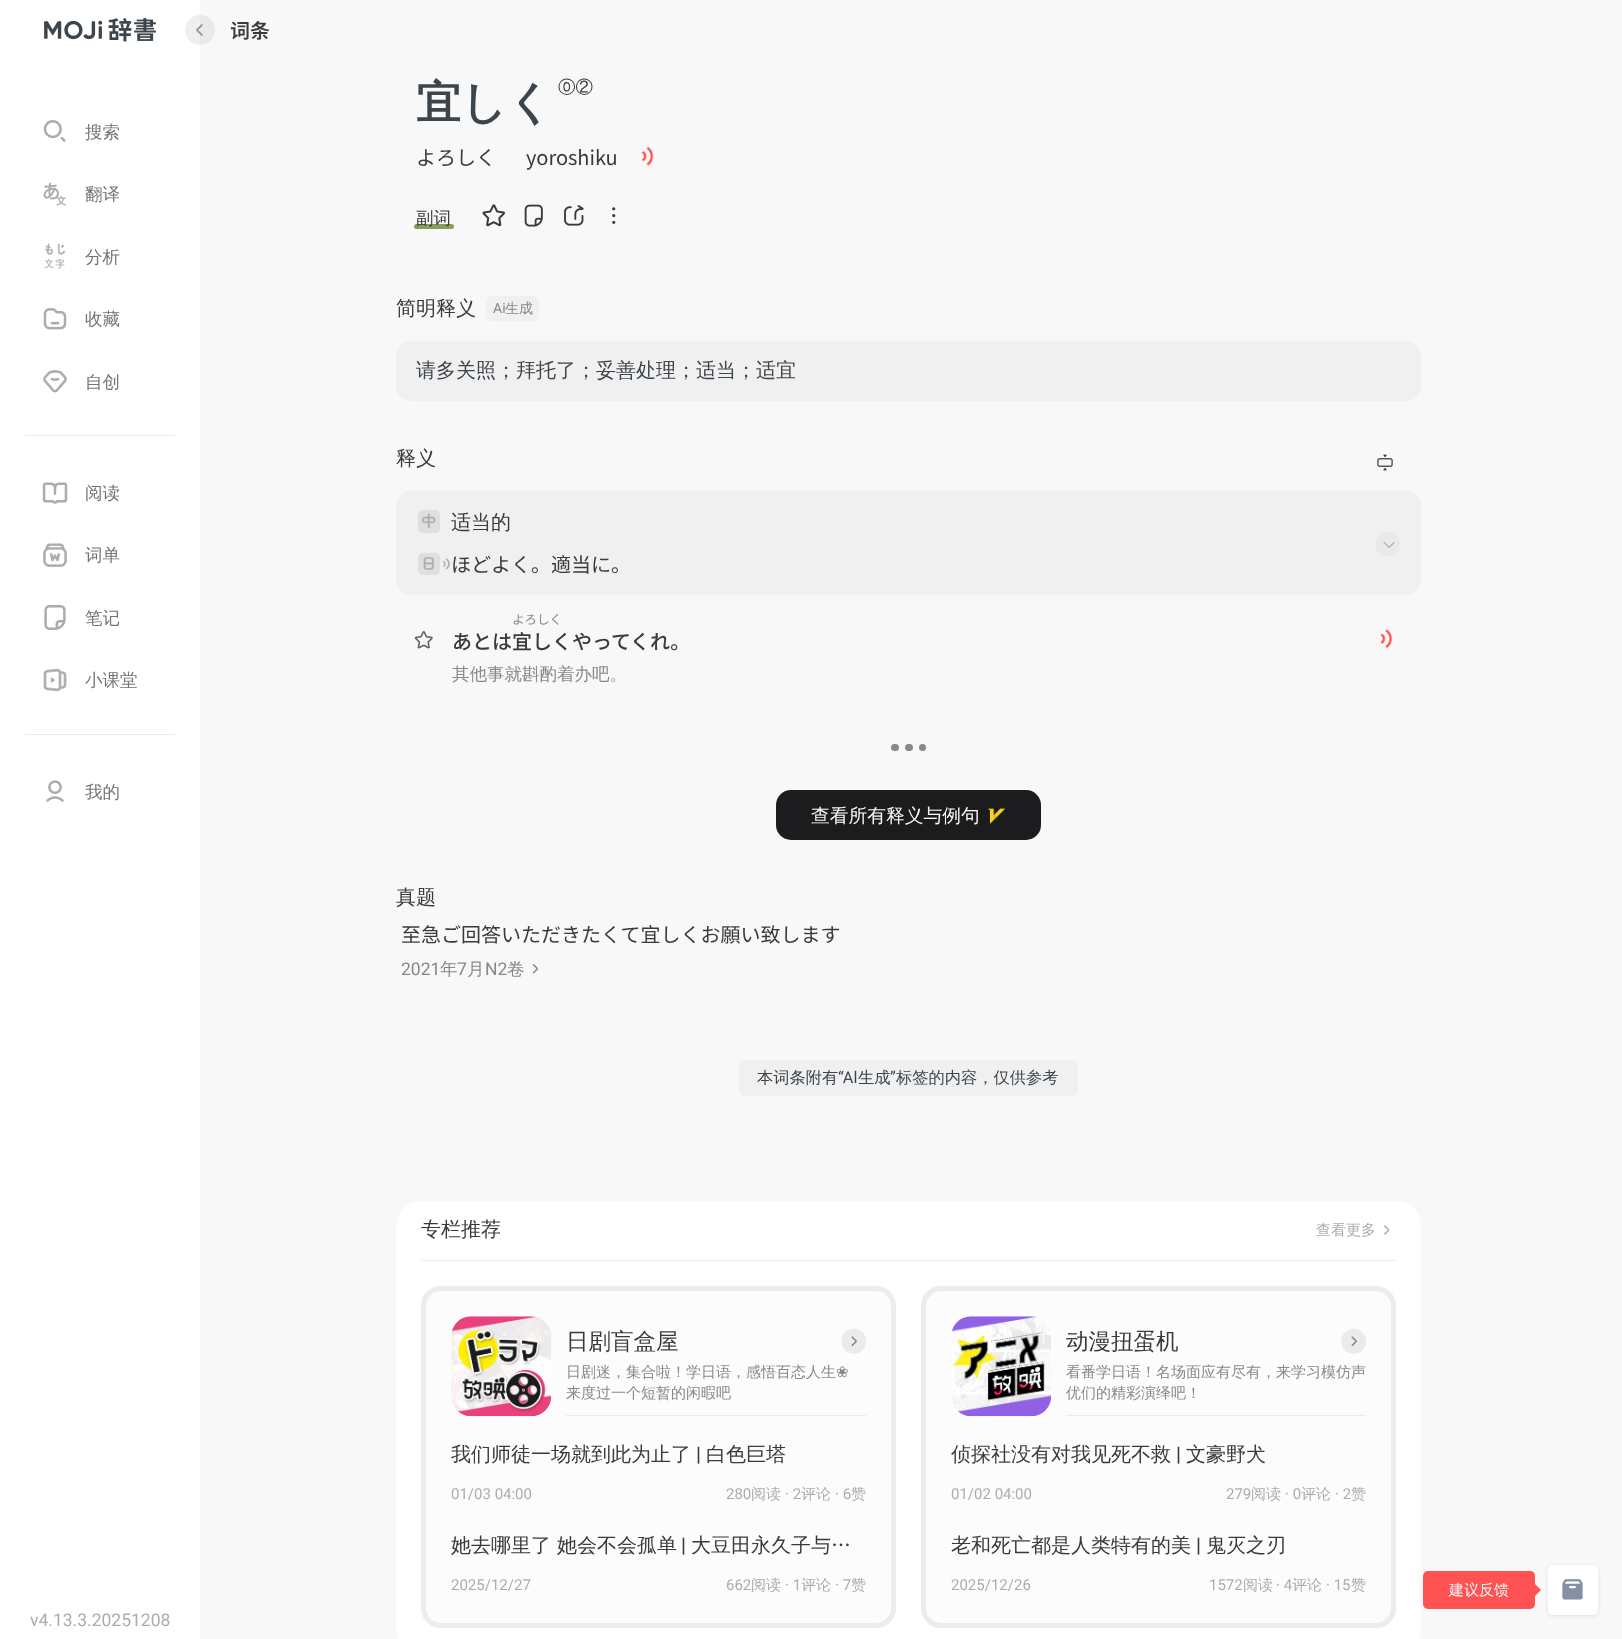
<svg xmlns="http://www.w3.org/2000/svg" xmlns:xlink="http://www.w3.org/1999/xlink" width="1622" height="1639" viewBox="0 0 1622 1639">
<style>
.cls-1{font:500 17.5px WenQuanYi Zen Hei;fill:#757470}
.cls-2{font:17.5px Roboto;fill:#acacac}
.cls-3{font:600 20px Noto Sans SC;fill:#3a3a3a}
.cls-4{font:bold 45px WenQuanYi Zen Hei;fill:#3d454c}
.cls-5{font:500 17.5px WenQuanYi Zen Hei;fill:#3a3a3a}
.cls-6{font:20px Noto Sans SC;fill:#3a3a3a}
.cls-7{font:500 20px WenQuanYi Zen Hei;fill:#3a3a3a}
.cls-8{font:14px Roboto;fill:#8b8787}
.cls-9{font:500 14px WenQuanYi Zen Hei;fill:#8b8787}
.cls-10{font:500 20px WenQuanYi Zen Hei;fill:#3d454c}
.cls-11{font:12.5px Noto Sans SC;fill:#8b8787}
.cls-12{font:500 20px Noto Sans SC;fill:#3a3a3a}
.cls-13{font:500 17.5px WenQuanYi Zen Hei;fill:#8b8787}
.cls-14{font:500 18.75px WenQuanYi Zen Hei;fill:#fafafa}
.cls-15{font:17.5px Roboto;fill:#8b8787}
.cls-16{font:500 16.25px WenQuanYi Zen Hei;fill:#3d454c}
.cls-17{font:16.25px Roboto;fill:#3d454c}
.cls-18{font:500 15px WenQuanYi Zen Hei;fill:#acacac}
.cls-19{font:500 22.5px WenQuanYi Zen Hei;fill:#3a3a3a}
.cls-20{font:500 15px WenQuanYi Zen Hei;fill:#8b8787}
.cls-21{font:15px DejaVu Sans;fill:#8b8787}
.cls-22{font:500 20px Roboto;fill:#3a3a3a}
.cls-23{font:15px Roboto;fill:#acacac}
.cls-24{font:500 15px WenQuanYi Zen Hei;fill:#fafafa}
</style>
<rect width="100%" height="100%" fill="#f8f8f8"/>
<rect fill="#ffffff" x="0" y="0" width="200" height="1639"/>
<image xlink:href="image0.png" x="44" y="18" width="112" height="24"/>
<image xlink:href="image1.png" x="185" y="15" width="30" height="30"/>
<image xlink:href="image2.png" x="43" y="120" width="23" height="22"/>
<image xlink:href="image3.png" x="43" y="182" width="23" height="24"/>
<image xlink:href="image4.png" x="44" y="243" width="22" height="26"/>
<image xlink:href="image5.png" x="43" y="308" width="24" height="22"/>
<image xlink:href="image6.png" x="43" y="370" width="24" height="23"/>
<rect fill="#ececec" x="25" y="435" width="150" height="1"/>
<image xlink:href="image7.png" x="42" y="482" width="26" height="22"/>
<image xlink:href="image8.png" x="43" y="543" width="24" height="24"/>
<image xlink:href="image9.png" x="44" y="605" width="22" height="25"/>
<image xlink:href="image10.png" x="43" y="668" width="24" height="24"/>
<rect fill="#ececec" x="25" y="734" width="150" height="1"/>
<image xlink:href="image11.png" x="46" y="780" width="18" height="22"/>
<image xlink:href="image12.png" x="641" y="147" width="13" height="19"/>
<rect fill="#879e5c" x="414" y="224" width="40" height="5" rx="2.5"/>
<image xlink:href="image13.png" x="482" y="204" width="23" height="23"/>
<image xlink:href="image14.png" x="524" y="204" width="19" height="23"/>
<image xlink:href="image15.png" x="564" y="205" width="20" height="21"/>
<image xlink:href="image16.png" x="612" y="207" width="4" height="17"/>
<rect fill="#f0f0f0" x="486" y="296" width="53" height="25" rx="5"/>
<rect fill="#f0f0f0" x="396" y="341" width="1025" height="60" rx="15"/>
<image xlink:href="image17.png" x="1377" y="454" width="16" height="17"/>
<rect fill="#f0f0f0" x="396" y="491" width="1025" height="104" rx="15"/>
<image xlink:href="image18.png" x="418" y="510" width="22" height="23"/>
<image xlink:href="image19.png" x="418" y="553" width="22" height="22"/>
<image xlink:href="image20.png" x="443" y="558" width="7" height="12"/>
<path fill="#e9e9e9" d="M1400.5 544C1400.5 560.5 1375.5 560.5 1375.5 544C1375.5 527.5 1400.5 527.5 1400.5 544Z"/>
<image xlink:href="image21.png" x="1383" y="542" width="12" height="6"/>
<image xlink:href="image22.png" x="414" y="631" width="19" height="18"/>
<image xlink:href="image23.png" x="1380" y="629" width="12" height="19"/>
<rect fill="#1c1c1e" x="776" y="790" width="265" height="50" rx="15"/>
<rect fill="#8b8787" x="891" y="744" width="8" height="7" rx="3.5"/>
<rect fill="#8b8787" x="905" y="744" width="8" height="7" rx="3.5"/>
<circle fill="#8b8787" cx="922.5" cy="747.5" r="3.5"/>
<image xlink:href="image24.png" x="988" y="808" width="17" height="16"/>
<image xlink:href="image25.png" x="532" y="964" width="6" height="10"/>
<rect fill="#f0f0f0" x="739" y="1060" width="339" height="36" rx="6"/>
<rect fill="#ffffff" x="396" y="1201" width="1025" height="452" rx="25"/>
<rect fill="#ececec" x="421" y="1260" width="975" height="1"/>
<image xlink:href="image26.png" x="1384" y="1225" width="6" height="10"/>
<rect fill="#fcfcfc" stroke="#ececec" stroke-width="5" x="423.5" y="1288.5" width="470" height="337" rx="17.5"/>
<image xlink:href="image27.png" x="451" y="1316" width="101" height="101"/>
<rect fill="#ececec" x="566" y="1415" width="300" height="1"/>
<image xlink:href="image28.png" x="841" y="1328" width="25" height="26"/>
<rect fill="#fcfcfc" stroke="#ececec" stroke-width="5" x="923.5" y="1288.5" width="470" height="337" rx="17.5"/>
<image xlink:href="image29.png" x="951" y="1316" width="101" height="101"/>
<rect fill="#ececec" x="1066" y="1415" width="300" height="1"/>
<image xlink:href="image28.png" x="1341" y="1328" width="25" height="26"/>
<rect fill="#1a1a1a" fill-opacity="0.1" filter="blur(2px)" x="1548" y="1566" width="50" height="50" rx="5"/>
<rect fill="#ffffff" x="1548" y="1565" width="50" height="50" rx="5"/>
<rect fill="#ff5252" x="1423" y="1571" width="112" height="38" rx="5"/>
<path fill="#ff5252" d="M1535 1596V1584L1541 1590Z"/>
<image xlink:href="image30.png" x="1562" y="1579" width="21" height="21"/>
<text class="cls-1" x="85" y="138">搜索</text>
<text class="cls-1" x="85" y="200">翻译</text>
<text class="cls-1" x="85" y="263">分析</text>
<text class="cls-1" x="85" y="325">收藏</text>
<text class="cls-1" x="85" y="388">自创</text>
<text class="cls-1" x="85" y="499">阅读</text>
<text class="cls-1" x="85" y="561">词单</text>
<text class="cls-1" x="85" y="624">笔记</text>
<text class="cls-1" x="85" y="686">小课堂</text>
<text class="cls-1" x="85" y="798">我的</text>
<text class="cls-2" x="30" y="1626">v4.13.3.20251208</text>
<text class="cls-3" x="230" y="38">词条</text>
<text class="cls-4" x="416" y="118">宜しく</text>
<text class="cls-5" x="558" y="93">⓪②</text>
<text class="cls-6" x="416" y="165">よろしく</text>
<text class="cls-6" x="526" y="165">yoroshiku</text>
<text class="cls-5" x="416" y="224">副词</text>
<text class="cls-7" x="396" y="315">简明释义</text>
<text class="cls-8" x="493" y="313">Ai</text>
<text class="cls-9" x="505" y="313">生成</text>
<text class="cls-10" x="416" y="377">请多关照；拜托了；妥善处理；适当；适宜</text>
<text class="cls-7" x="396" y="465">释义</text>
<text class="cls-7" x="451" y="529">适当的</text>
<text class="cls-6" x="451" y="572">ほどよく。適当に。</text>
<text class="cls-11" x="512" y="624">よろしく</text>
<text class="cls-12" x="452" y="649">あとは宜しくやっ</text>
<text class="cls-12" x="611" y="649">て</text>
<text class="cls-12" x="630" y="649">くれ。</text>
<text class="cls-13" x="452" y="680">其他事就斟酌着办吧。</text>
<text class="cls-14" x="811" y="822">查看所有释义与例句</text>
<text class="cls-7" x="396" y="904">真题</text>
<text class="cls-6" x="401" y="942">至急ご回答いただきたくて宜しくお願い致します</text>
<text class="cls-15" x="401" y="975">2021</text>
<text class="cls-13" x="440" y="975">年</text>
<text class="cls-15" x="457" y="975">7</text>
<text class="cls-13" x="467" y="975">月</text>
<text class="cls-15" x="485" y="975">N2</text>
<text class="cls-13" x="507" y="975">卷</text>
<text class="cls-16" x="757" y="1083">本词条附有</text>
<text class="cls-17" x="838" y="1083">“Al</text>
<text class="cls-16" x="858" y="1083">生成</text>
<text class="cls-17" x="890" y="1083">”</text>
<text class="cls-16" x="896" y="1083">标签的内容，仅供参考</text>
<text class="cls-7" x="421" y="1236">专栏推荐</text>
<text class="cls-18" x="1316" y="1235">查看更多</text>
<text class="cls-19" x="566" y="1349">日剧盲盒屋</text>
<text class="cls-20" x="566" y="1377">日剧迷，集合啦！学日语，感悟百态人生</text>
<text class="cls-21" x="836" y="1377">❀</text>
<text class="cls-20" x="566" y="1398">来度过一个短暂的闲暇吧</text>
<text class="cls-7" x="451" y="1461">我们师徒一场就到此为止了</text>
<text class="cls-22" x="696" y="1461">|</text>
<text class="cls-7" x="706" y="1461">白色巨塔</text>
<text class="cls-23" x="451" y="1499">01/03 04:00</text>
<text class="cls-23" x="726" y="1499">280</text>
<text class="cls-18" x="751" y="1499">阅读</text>
<text class="cls-23" x="785" y="1499">· 2</text>
<text class="cls-18" x="801" y="1499">评论</text>
<text class="cls-23" x="835" y="1499">· 6</text>
<text class="cls-18" x="851" y="1499">赞</text>
<text class="cls-7" x="451" y="1552">她去哪里了 她会不会孤单</text>
<text class="cls-22" x="681" y="1552">|</text>
<text class="cls-7" x="691" y="1552">大豆田永久子与…</text>
<text class="cls-23" x="451" y="1590">2025/12/27</text>
<text class="cls-23" x="726" y="1590">662</text>
<text class="cls-18" x="751" y="1590">阅读</text>
<text class="cls-23" x="785" y="1590">· 1</text>
<text class="cls-18" x="801" y="1590">评论</text>
<text class="cls-23" x="835" y="1590">· 7</text>
<text class="cls-18" x="851" y="1590">赞</text>
<text class="cls-19" x="1066" y="1349">动漫扭蛋机</text>
<text class="cls-20"><tspan x="1066" y="1377">看番学日语！名场面应有尽有，来学习模仿声</tspan><tspan x="1066" y="1398">优们的精彩演绎吧！</tspan></text>
<text class="cls-7" x="951" y="1461">侦探社没有对我见死不救</text>
<text class="cls-22" x="1176" y="1461">|</text>
<text class="cls-7" x="1186" y="1461">文豪野犬</text>
<text class="cls-23" x="951" y="1499">01/02 04:00</text>
<text class="cls-23" x="1226" y="1499">279</text>
<text class="cls-18" x="1251" y="1499">阅读</text>
<text class="cls-23" x="1285" y="1499">· 0</text>
<text class="cls-18" x="1301" y="1499">评论</text>
<text class="cls-23" x="1335" y="1499">· 2</text>
<text class="cls-18" x="1351" y="1499">赞</text>
<text class="cls-7" x="951" y="1552">老和死亡都是人类特有的美</text>
<text class="cls-22" x="1196" y="1552">|</text>
<text class="cls-7" x="1206" y="1552">鬼灭之刃</text>
<text class="cls-23" x="951" y="1590">2025/12/26</text>
<text class="cls-23" x="1209" y="1590">1572</text>
<text class="cls-18" x="1243" y="1590">阅读</text>
<text class="cls-23" x="1276" y="1590">· 4</text>
<text class="cls-18" x="1292" y="1590">评论</text>
<text class="cls-23" x="1326" y="1590">· 15</text>
<text class="cls-18" x="1351" y="1590">赞</text>
<text class="cls-24" x="1449" y="1595">建议反馈</text>
</svg>
